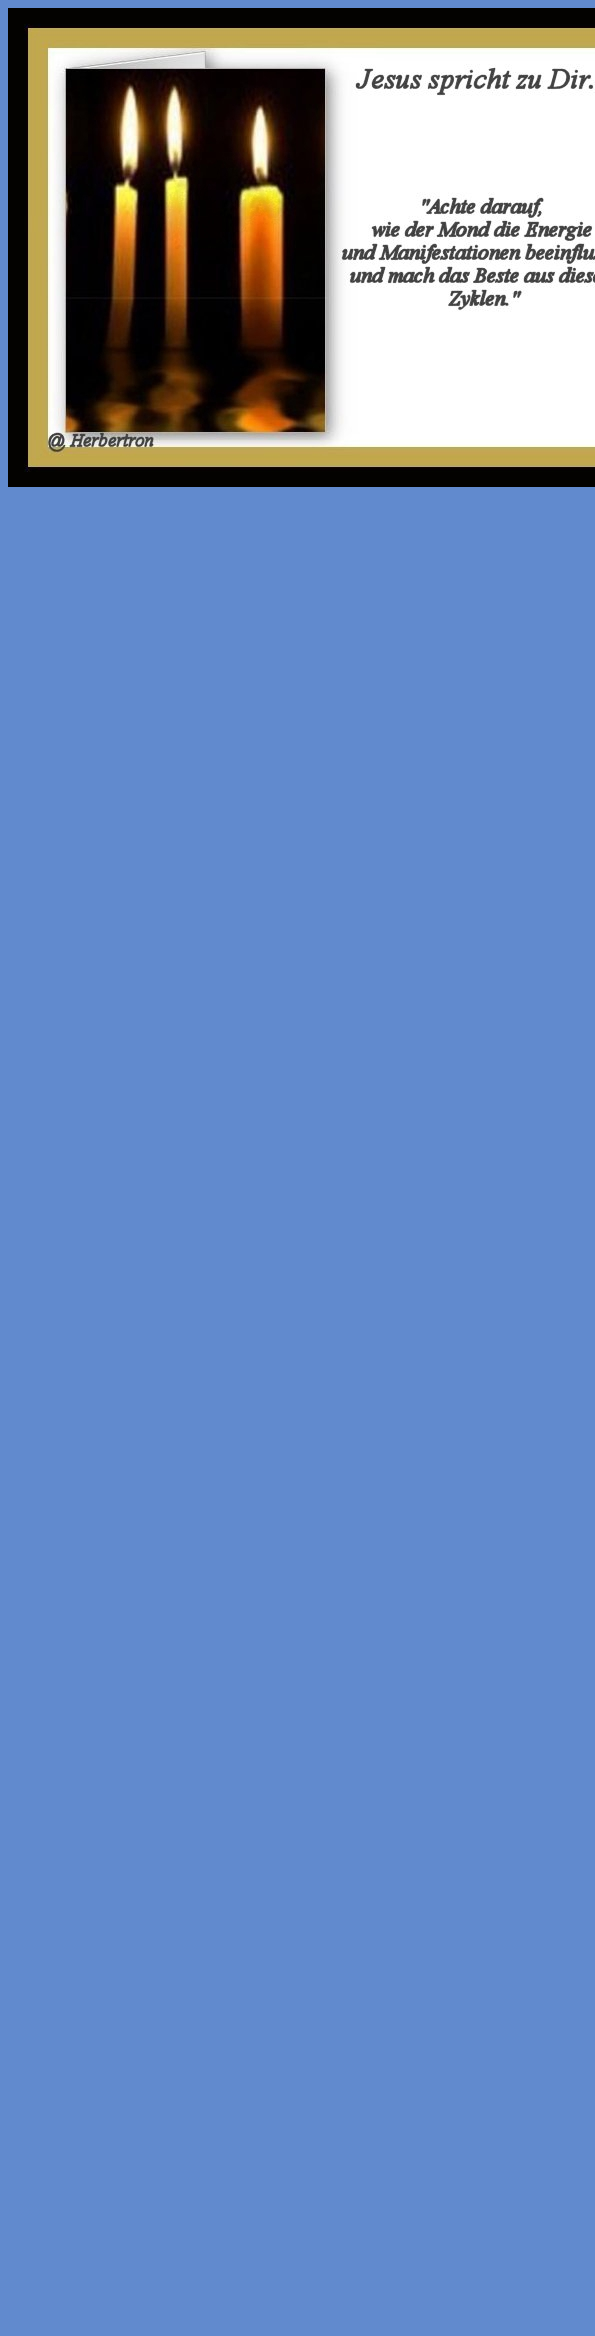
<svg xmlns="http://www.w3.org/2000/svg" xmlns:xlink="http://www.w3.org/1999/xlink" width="595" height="2336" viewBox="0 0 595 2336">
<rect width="100%" height="100%" fill="#618ace"/>
<image xlink:href="image0.png" x="8" y="8" width="587" height="479"/>
</svg>
